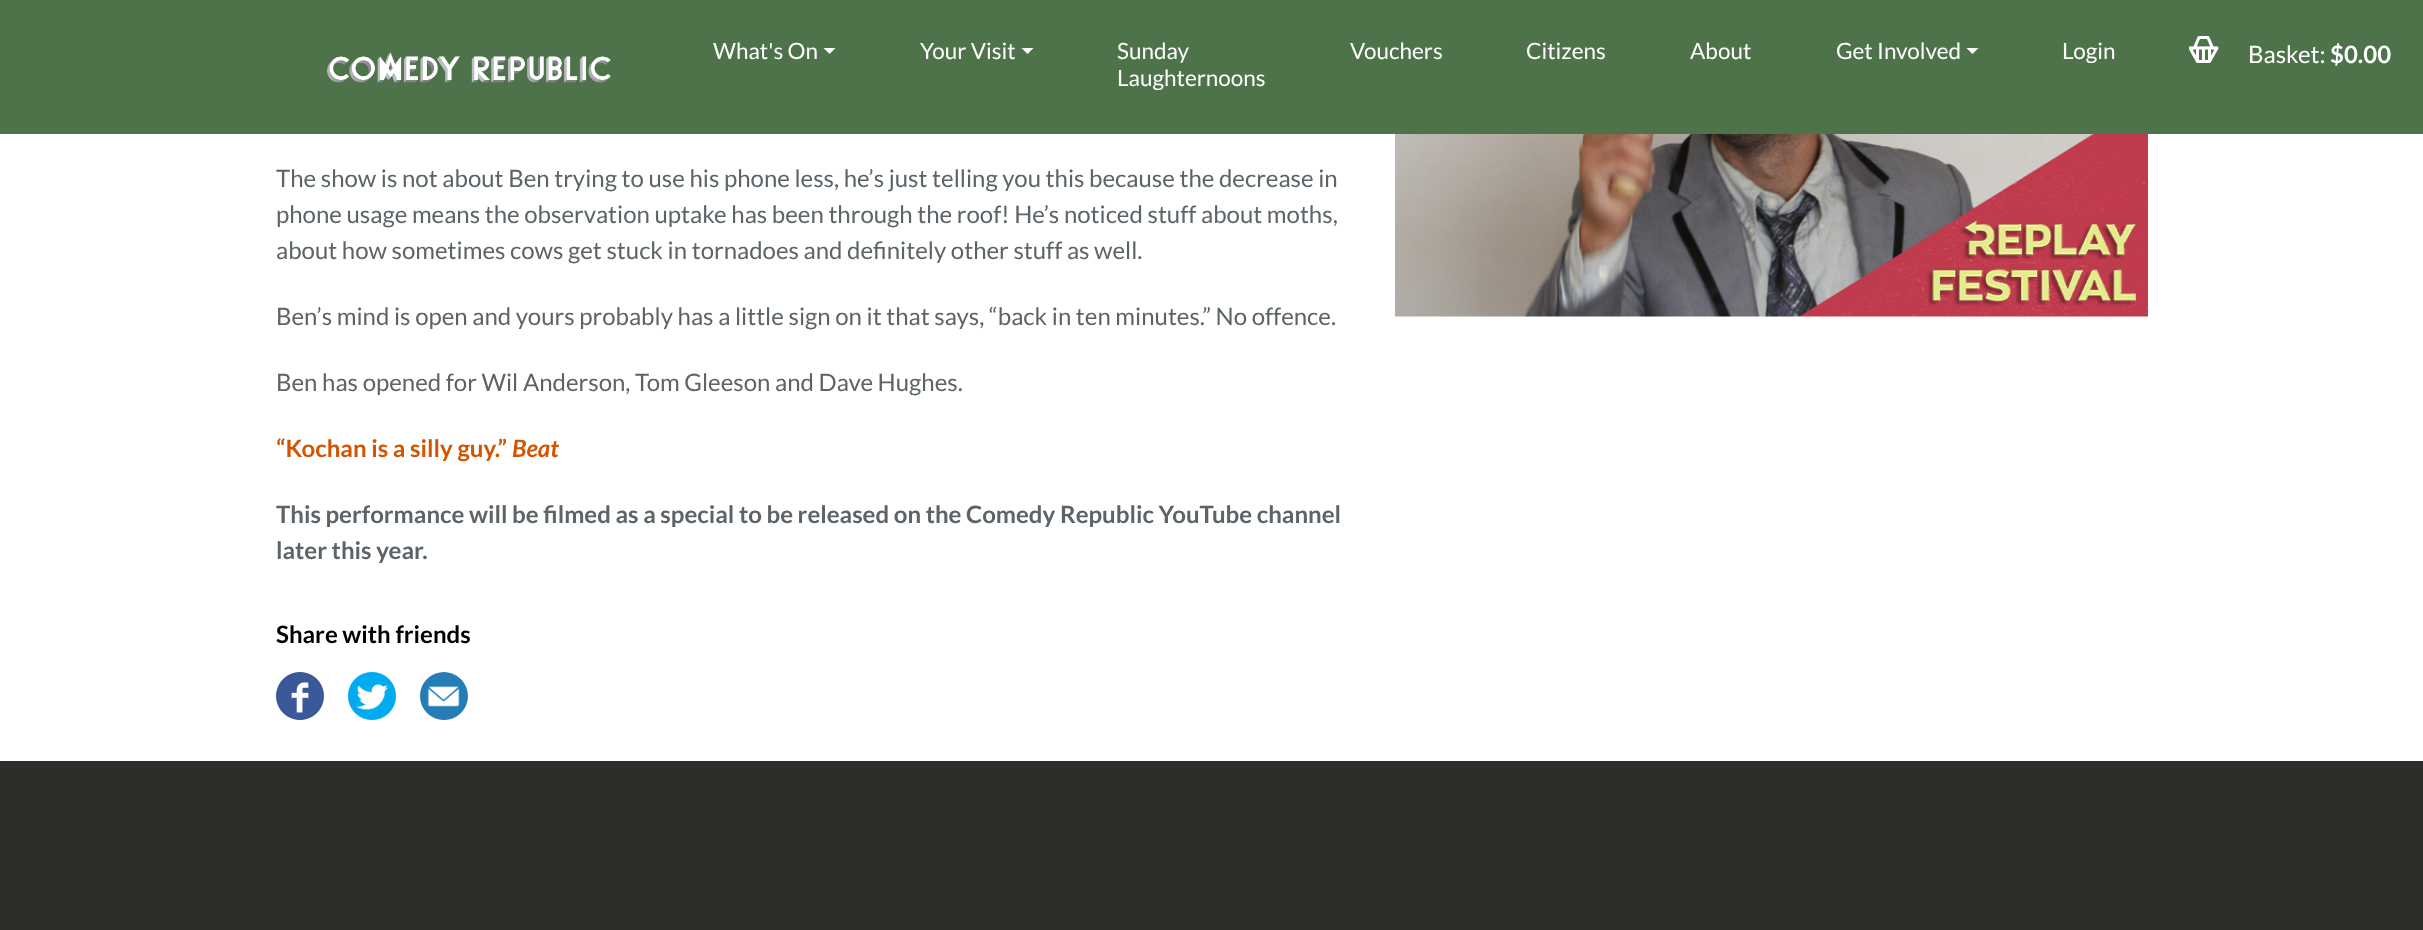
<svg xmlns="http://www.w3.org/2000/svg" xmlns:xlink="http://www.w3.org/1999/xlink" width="2423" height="930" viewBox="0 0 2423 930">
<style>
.cls-1{font:22.5px Lato;fill:#ffffff}
.cls-2{font:24px Lato;fill:#ffffff}
.cls-3{font:bold 24px Lato;fill:#ffffff}
.cls-4{font:24px Lato;fill:#5c6468}
.cls-5{font:bold 24px Lato;fill:#d35400}
.cls-6{font:italic bold 24px Lato;fill:#d35400}
.cls-7{font:bold 24px Lato;fill:#5c6468}
.cls-8{font:bold 24px Lato;fill:#000000}
</style>
<rect width="100%" height="100%" fill="#ffffff"/>
<rect fill="#4e724a" x="0" y="0" width="2423" height="134"/>
<image xlink:href="image0.png" x="327" y="52" width="284" height="31"/>
<path fill="#ffffff" d="M823.5 48H835.5L829.5 54Z"/>
<path fill="#ffffff" d="M1021.5 48H1033.5L1027.5 54Z"/>
<path fill="#ffffff" d="M1966.5 48H1978.5L1972.5 54Z"/>
<image xlink:href="image1.png" x="2189" y="36" width="30" height="27"/>
<image xlink:href="image2.png" x="276" y="672" width="48" height="48"/>
<image xlink:href="image3.png" x="348" y="672" width="48" height="48"/>
<image xlink:href="image4.png" x="420" y="672" width="48" height="48"/>
<image xlink:href="image5.png" x="1395" y="134" width="753" height="183"/>
<rect fill="#2e2d2a" x="0" y="761" width="2423" height="169"/>
<text class="cls-1" x="713" y="59">What's On</text>
<text class="cls-1" x="920" y="59">Your Visit</text>
<text class="cls-1"><tspan x="1117" y="59">Sunday</tspan><tspan x="1117" y="86">Laughternoons</tspan></text>
<text class="cls-1" x="1350" y="59">Vouchers</text>
<text class="cls-1" x="1526" y="59">Citizens</text>
<text class="cls-1" x="1690" y="59">About</text>
<text class="cls-1" x="1836" y="59">Get Involved</text>
<text class="cls-1" x="2062" y="59">Login</text>
<text class="cls-2" x="2248" y="63">Basket:</text>
<text class="cls-3" x="2330" y="63">$0.00</text>
<text class="cls-4"><tspan x="276" y="187">The show is not about Ben trying to use his phone less, he’s just telling you this because the decrease in</tspan><tspan x="276" y="223">phone usage means the observation uptake has been through the roof! He’s noticed stuff about moths,</tspan><tspan x="276" y="259">about how sometimes cows get stuck in tornadoes and definitely other stuff as well.</tspan></text>
<text class="cls-4" x="276" y="325">Ben’s mind is open and yours probably has a little sign on it that says, “back in ten minutes.” No offence.</text>
<text class="cls-4" x="276" y="391">Ben has opened for Wil Anderson, Tom Gleeson and Dave Hughes.</text>
<text class="cls-5" x="276" y="457">“Kochan is a silly guy.”</text>
<text class="cls-6" x="512" y="457">Beat</text>
<text class="cls-7"><tspan x="276" y="523">This performance will be filmed as a special to be released on the Comedy Republic YouTube channel</tspan><tspan x="276" y="559">later this year.</tspan></text>
<text class="cls-8" x="276" y="643">Share with friends</text>
</svg>
